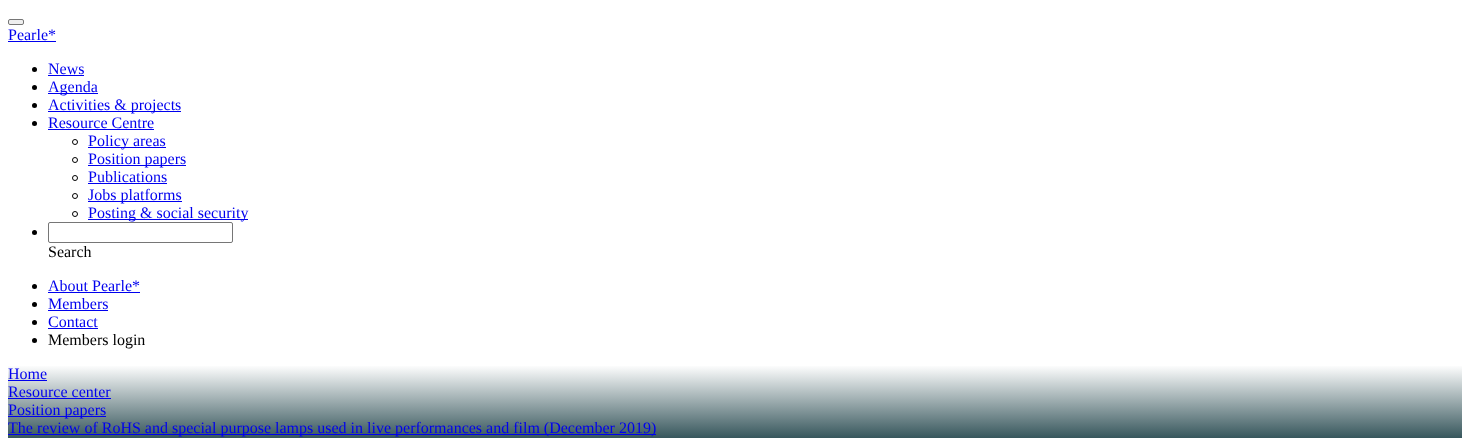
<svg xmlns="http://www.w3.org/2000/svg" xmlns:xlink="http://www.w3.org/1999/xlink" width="1470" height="438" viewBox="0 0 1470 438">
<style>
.cls-1{font:16px Liberation Serif;fill:#0000ee}
.cls-2{font:16px Liberation Serif;fill:#000000}
</style>
<defs>
<linearGradient id="g1" gradientUnits="userSpaceOnUse" x1="735" y1="365" x2="735" y2="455"><stop offset="0" stop-color="#ffffff"/><stop offset="1" stop-color="#082f36"/></linearGradient>
</defs>
<rect width="100%" height="100%" fill="#ffffff"/>
<rect fill="#efefef" stroke="#767676" x="8.5" y="19.5" width="15" height="5" rx="1.5"/>
<rect fill="#0000ee" x="8" y="41" width="48" height="1"/>
<circle fill="#000000" cx="34.5" cy="69.5" r="2.5"/>
<rect fill="#0000ee" x="48" y="75" width="36" height="1"/>
<circle fill="#000000" cx="34.5" cy="87.5" r="2.5"/>
<rect fill="#0000ee" x="48" y="93" width="50" height="1"/>
<circle fill="#000000" cx="34.5" cy="105.5" r="2.5"/>
<rect fill="#0000ee" x="48" y="111" width="133" height="1"/>
<circle fill="#000000" cx="34.5" cy="123.5" r="2.5"/>
<rect fill="#0000ee" x="48" y="129" width="106" height="1"/>
<circle fill="none" stroke="#000000" cx="75" cy="142" r="2.5"/>
<rect fill="#0000ee" x="88" y="147" width="78" height="1"/>
<circle fill="none" stroke="#000000" cx="75" cy="160" r="2.5"/>
<rect fill="#0000ee" x="88" y="165" width="98" height="1"/>
<circle fill="none" stroke="#000000" cx="75" cy="178" r="2.5"/>
<rect fill="#0000ee" x="88" y="183" width="79" height="1"/>
<circle fill="none" stroke="#000000" cx="75" cy="196" r="2.5"/>
<rect fill="#0000ee" x="88" y="201" width="94" height="1"/>
<circle fill="none" stroke="#000000" cx="75" cy="214" r="2.5"/>
<rect fill="#0000ee" x="88" y="219" width="160" height="1"/>
<circle fill="#000000" cx="34.5" cy="232.5" r="2.5"/>
<rect fill="none" stroke="#767676" x="48.5" y="222.5" width="184" height="20" rx="1.5"/>
<circle fill="#000000" cx="34.5" cy="286.5" r="2.5"/>
<rect fill="#0000ee" x="48" y="292" width="92" height="1"/>
<circle fill="#000000" cx="34.5" cy="304.5" r="2.5"/>
<rect fill="#0000ee" x="48" y="310" width="60" height="1"/>
<circle fill="#000000" cx="34.5" cy="322.5" r="2.5"/>
<rect fill="#0000ee" x="48" y="328" width="50" height="1"/>
<circle fill="#000000" cx="34.5" cy="340.5" r="2.5"/>
<rect fill="url(#g1)" x="8" y="366" width="1454" height="72"/>
<rect fill="#0000ee" x="8" y="380" width="39" height="1"/>
<rect fill="#0000ee" x="8" y="398" width="103" height="1"/>
<rect fill="#0000ee" x="8" y="416" width="98" height="1"/>
<rect fill="#0000ee" x="8" y="434" width="648" height="1"/>
<text class="cls-1" x="8" y="40">Pearle*</text>
<text class="cls-1"><tspan x="48" y="74">News</tspan><tspan x="48" y="92">Agenda</tspan><tspan x="48" y="110">Activities &amp; projects</tspan><tspan x="48" y="128">Resource Centre</tspan></text>
<text class="cls-1"><tspan x="88" y="146">Policy areas</tspan><tspan x="88" y="164">Position papers</tspan><tspan x="88" y="182">Publications</tspan><tspan x="88" y="200">Jobs platforms</tspan><tspan x="88" y="218">Posting &amp; social security</tspan></text>
<text class="cls-2" x="48" y="257">Search</text>
<text class="cls-1"><tspan x="48" y="291">About Pearle*</tspan><tspan x="48" y="309">Members</tspan><tspan x="48" y="327">Contact</tspan></text>
<text class="cls-2" x="48" y="345">Members login</text>
<text class="cls-1"><tspan x="8" y="379">Home</tspan><tspan x="8" y="397">Resource center</tspan><tspan x="8" y="415">Position papers</tspan><tspan x="8" y="433">The review of RoHS and special purpose lamps used in live performances and film (December 2019)</tspan></text>
</svg>
